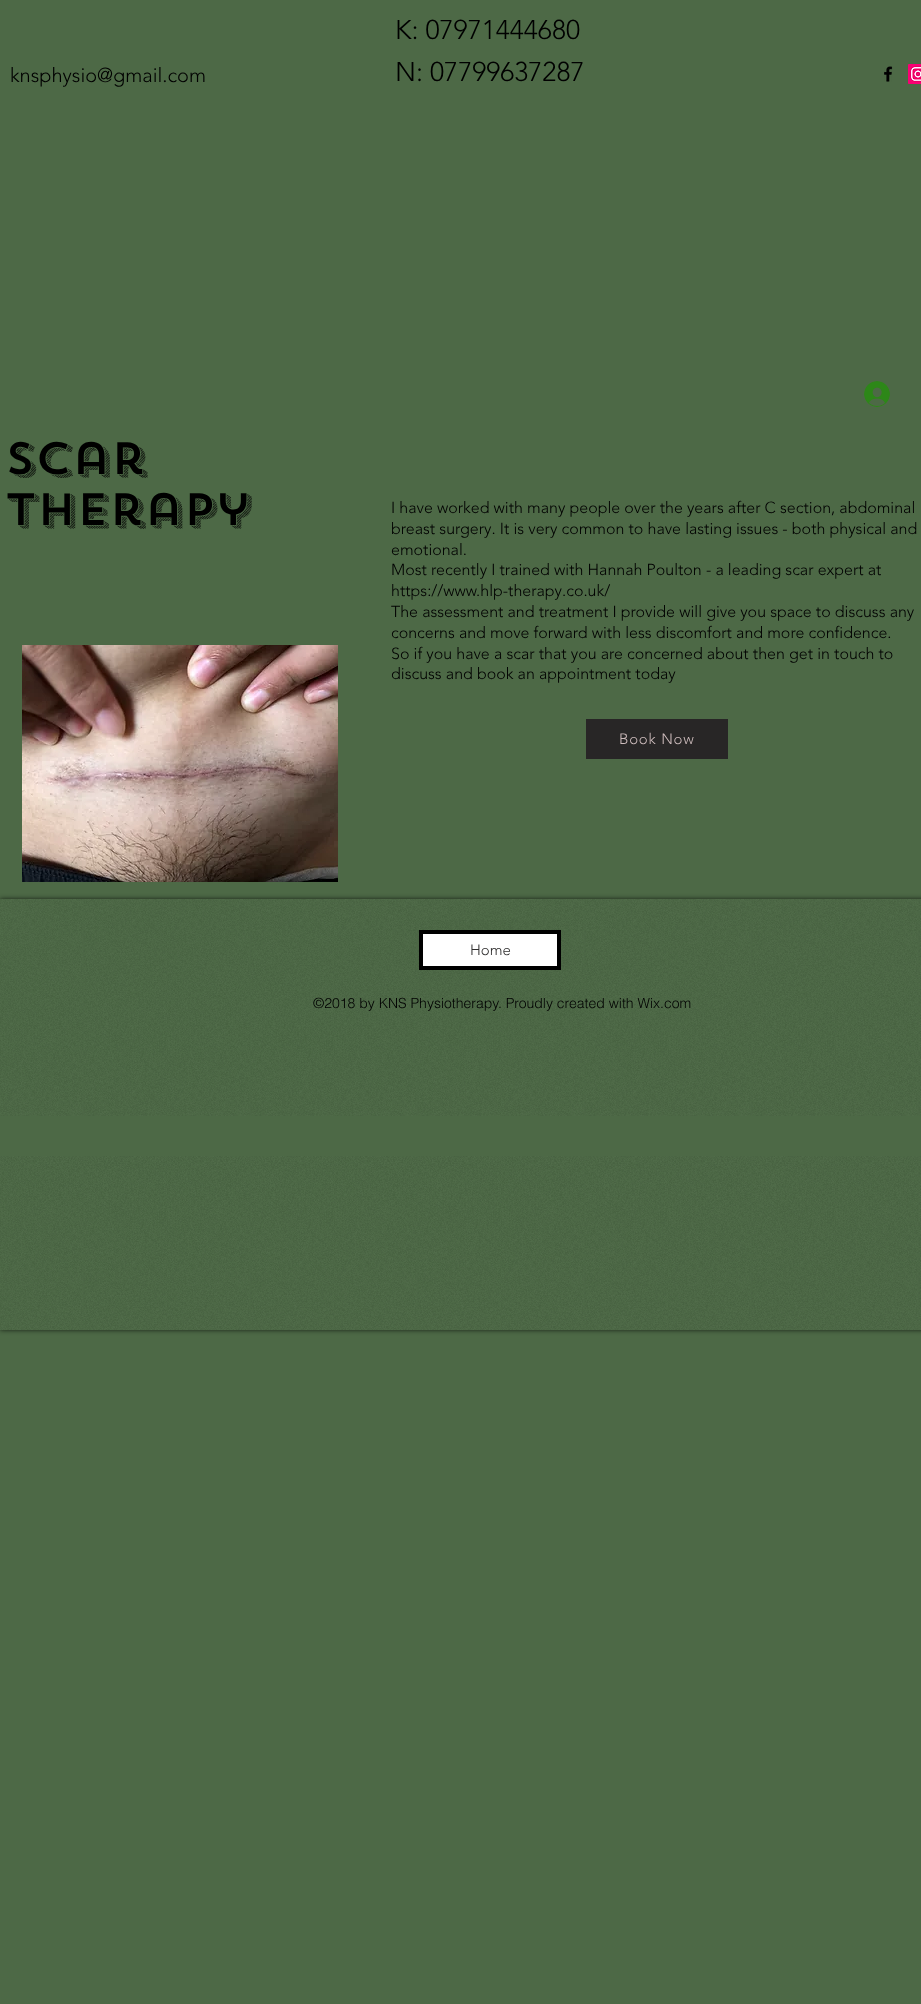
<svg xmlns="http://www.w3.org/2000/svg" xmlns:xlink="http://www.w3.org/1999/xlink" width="921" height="2004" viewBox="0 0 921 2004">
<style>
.cls-1{font:300 20px 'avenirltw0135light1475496';fill:#000000}
.cls-2{font:300 27px 'avenirltw0135light1475496';fill:#000000}
.cls-3{font:500 45px 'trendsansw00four';fill:#000000}
.cls-4{font:300 16px 'avenirltw0135light1475496';fill:#000000}
.cls-5{font:300 15px 'avenirltw0135light1475496';letter-spacing:0.75px;fill:#cdbcbc}
.cls-6{font:300 15px 'avenirltw0135light1475496';fill:#2f2e2e}
.cls-7{font:300 14px helvetica;fill:#000000}
</style>
<defs>
<clipPath id="clip1"><path d="M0 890H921V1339H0ZM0 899H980V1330H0Z" clip-rule="evenodd"/></clipPath>
</defs>
<rect width="100%" height="100%" fill="#4d6946"/>
<image xlink:href="image0.png" x="884" y="66" width="9" height="16"/>
<image xlink:href="image1.png" x="908" y="64" width="13" height="20"/>
<image xlink:href="image2.png" x="864" y="381" width="26" height="26"/>
<image xlink:href="image3.png" x="22" y="645" width="316" height="237"/>
<rect fill="#282626" x="586" y="719" width="142" height="40"/>
<g clip-path="url(#clip1)">
<rect fill="#000000" fill-opacity="0.7" filter="blur(2.5px)" x="0" y="899" width="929" height="431"/>
</g>
<image xlink:href="image4.png" x="0" y="899" width="921" height="431"/>
<rect fill="#ffffff" stroke="#000000" stroke-width="4" x="421" y="932" width="138" height="36"/>
<rect fill="#4d6946" x="0" y="1116" width="921" height="40"/>
<text class="cls-1" x="10" y="82">knsphysio@gmail.com</text>
<text class="cls-2"><tspan x="395" y="39">K: 07971444680</tspan><tspan x="395" y="81">N: 07799637287</tspan></text>
<text class="cls-3"><tspan x="5" y="474">Scar</tspan><tspan x="5" y="525">Therapy</tspan></text>
<text class="cls-4"><tspan x="391" y="513">I have worked with many people over the years after C section, abdominal</tspan><tspan x="391" y="534">breast surgery. It is very common to have lasting issues - both physical and</tspan><tspan x="391" y="555">emotional.</tspan><tspan x="391" y="575">Most recently I trained with Hannah Poulton - a leading scar expert at</tspan><tspan x="391" y="596">https://www.hlp-therapy.co.uk/</tspan><tspan x="391" y="617">The assessment and treatment I provide will give you space to discuss any</tspan><tspan x="391" y="638">concerns and move forward with less discomfort and more confidence.</tspan><tspan x="391" y="659">So if you have a scar that you are concerned about then get in touch to</tspan><tspan x="391" y="679">discuss and book an appointment today</tspan></text>
<text class="cls-5" x="619" y="744">Book Now</text>
<text class="cls-6" x="470" y="955">Home</text>
<text class="cls-7" x="313" y="1008">©2018 by KNS Physiotherapy. Proudly created with Wix.com</text>
</svg>
